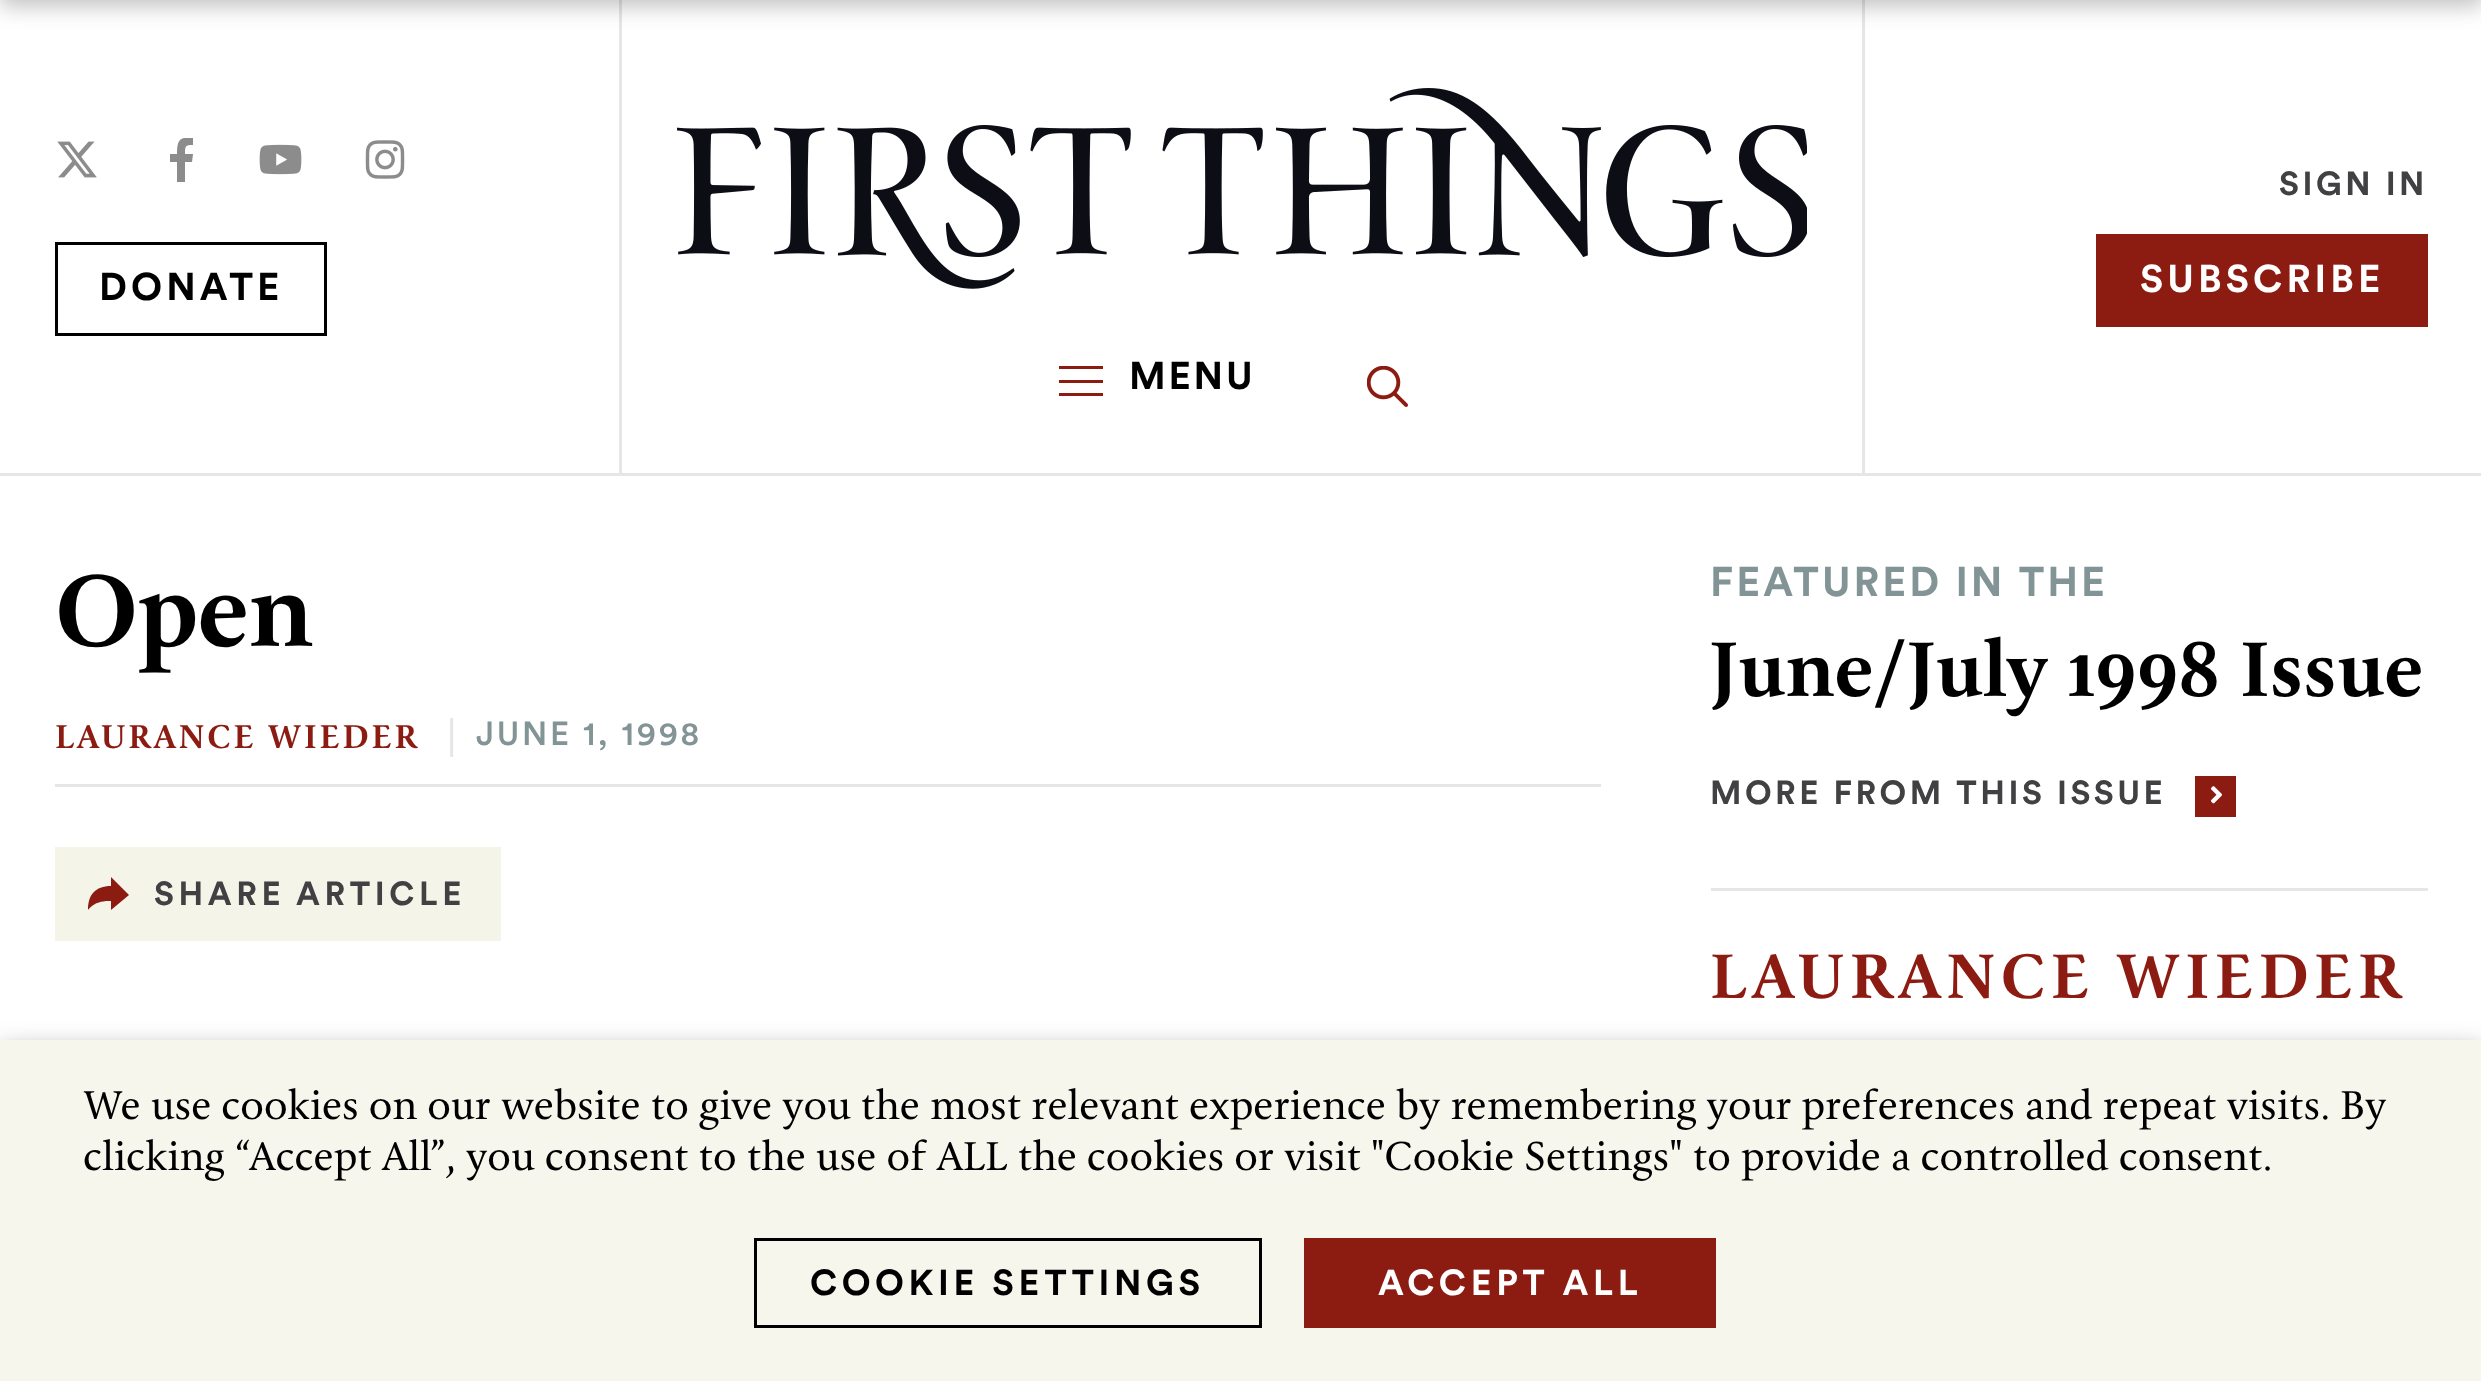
<svg xmlns="http://www.w3.org/2000/svg" xmlns:xlink="http://www.w3.org/1999/xlink" width="2481" height="1381" viewBox="0 0 2481 1381">
<style>
.cls-1{font:bold 38.5px Circular;letter-spacing:4.1px;fill:#000000}
.cls-2{font:bold 33px Circular;letter-spacing:3.5px;fill:#414042}
.cls-3{font:bold 38.5px Circular;letter-spacing:4.1px;fill:#ffffff}
.cls-4{font:bold 38.5px Circular;letter-spacing:2.75px;fill:#000000}
.cls-5{font:500 102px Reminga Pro;letter-spacing:-1px;fill:#000000}
.cls-6{font:500 33px Reminga Pro;letter-spacing:2.75px;fill:#8c1b11}
.cls-7{font:500 33px Reminga Pro;letter-spacing:2.75px;fill:#e6e6e6}
.cls-8{font:500 33px Circular;letter-spacing:2.75px;fill:#829496}
.cls-9{font:bold 33px Circular;letter-spacing:4.6px;fill:#414042}
.cls-10{font:bold 41.25px Circular;letter-spacing:3px;fill:#829496}
.cls-11{font:500 77.5px Reminga Pro;fill:#000000}
.cls-12{font:500 63px Reminga Pro;letter-spacing:5.25px;fill:#8c1b11}
.cls-13{font:40.33px Reminga Pro;fill:#000000}
.cls-14{font:bold 35.75px Circular;letter-spacing:4.6px;fill:#000000}
.cls-15{font:bold 35.75px Circular;letter-spacing:4.6px;fill:#ffffff}
</style>
<defs>
<clipPath id="clip1"><rect x="160" y="138" width="38" height="44"/></clipPath>
</defs>
<rect width="100%" height="100%" fill="#ffffff"/>
<rect fill="#e6e6e6" x="619" y="0" width="3" height="473"/>
<rect fill="#e6e6e6" x="1862" y="0" width="3" height="473"/>
<rect fill="#000000" fill-opacity="0.25" filter="blur(11px)" x="0" y="-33" width="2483" height="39"/>
<rect fill="#e6e6e6" x="0" y="473" width="2481" height="3"/>
<image xlink:href="image0.png" x="57" y="141" width="40" height="37"/>
<g clip-path="url(#clip1)">
<path fill="#8c8c8c" d="M192 162L193 154H185C185 146 185 145 193 145V138C179 136 177 141 177 154H170V162H177V182H185V162Z"/>
</g>
<image xlink:href="image1.png" x="259" y="144" width="43" height="31"/>
<image xlink:href="image2.png" x="365" y="140" width="40" height="39"/>
<rect fill="none" stroke="#000000" stroke-width="3" x="56.5" y="243.5" width="269" height="91"/>
<rect fill="#8c1b11" x="2096" y="234" width="332" height="93"/>
<image xlink:href="image3.png" x="677" y="88" width="1130" height="201"/>
<rect fill="#8c1b11" x="1059" y="380" width="44" height="3"/>
<rect fill="#8c1b11" x="1059" y="366" width="44" height="3"/>
<rect fill="#8c1b11" x="1059" y="393" width="44" height="3"/>
<image xlink:href="image4.png" x="1367" y="366" width="41" height="41"/>
<rect fill="#e6e6e6" x="55" y="784" width="1546" height="3"/>
<rect fill="#f4f4e9" x="55" y="847" width="446" height="94"/>
<path fill="#8c1b11" d="M111 886V877L129 895L111 910V901C94 900 88 910 88 910C88 895 95 886 111 886Z"/>
<rect fill="#8c1b11" x="2195" y="776" width="41" height="41"/>
<image xlink:href="image5.png" x="2211" y="786" width="11" height="18"/>
<rect fill="#e6e6e6" x="1711" y="888" width="717" height="3"/>
<rect fill="#000000" fill-opacity="0.5" filter="blur(14px)" x="0" y="1053" width="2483" height="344"/>
<rect fill="#f6f6ed" x="0" y="1040" width="2481" height="341"/>
<rect fill="none" stroke="#000000" stroke-width="3" x="755.5" y="1239.5" width="505" height="87"/>
<rect fill="#8c1b11" x="1304" y="1238" width="412" height="90"/>
<text class="cls-1" x="99" y="300">DONATE</text>
<text class="cls-2" x="2279" y="195">SIGN IN</text>
<text class="cls-3" x="2140" y="292">SUBSCRIBE</text>
<text class="cls-4" x="1129" y="389">MENU</text>
<text class="cls-5" x="55" y="646">Open</text>
<text class="cls-6" x="55" y="748">LAURANCE WIEDER</text>
<text class="cls-7" x="447" y="748">|</text>
<text class="cls-8" x="476" y="745">JUNE 1, 1998</text>
<text class="cls-9" x="154" y="905">SHARE</text>
<text class="cls-9" x="296" y="905">ARTICLE</text>
<text class="cls-10" x="1710" y="596">FEATURED IN THE</text>
<text class="cls-11" x="1710" y="696">June/July 1998</text>
<text class="cls-11" x="2240" y="696">Issue</text>
<text class="cls-2" x="1710" y="804">MORE FROM THIS ISSUE</text>
<text class="cls-12" x="1710" y="998">LAURANCE WIEDER</text>
<text class="cls-13"><tspan x="83" y="1119">We use cookies on our website to give you the most relevant experience by remembering your preferences and repeat visits. By</tspan><tspan x="83" y="1170">clicking “Accept All”, you consent to the use of ALL the cookies or visit "Cookie Settings" to provide a controlled consent.</tspan></text>
<text class="cls-14" x="810" y="1295">COOKIE SETTINGS</text>
<text class="cls-15" x="1378" y="1295">ACCEPT ALL</text>
</svg>
